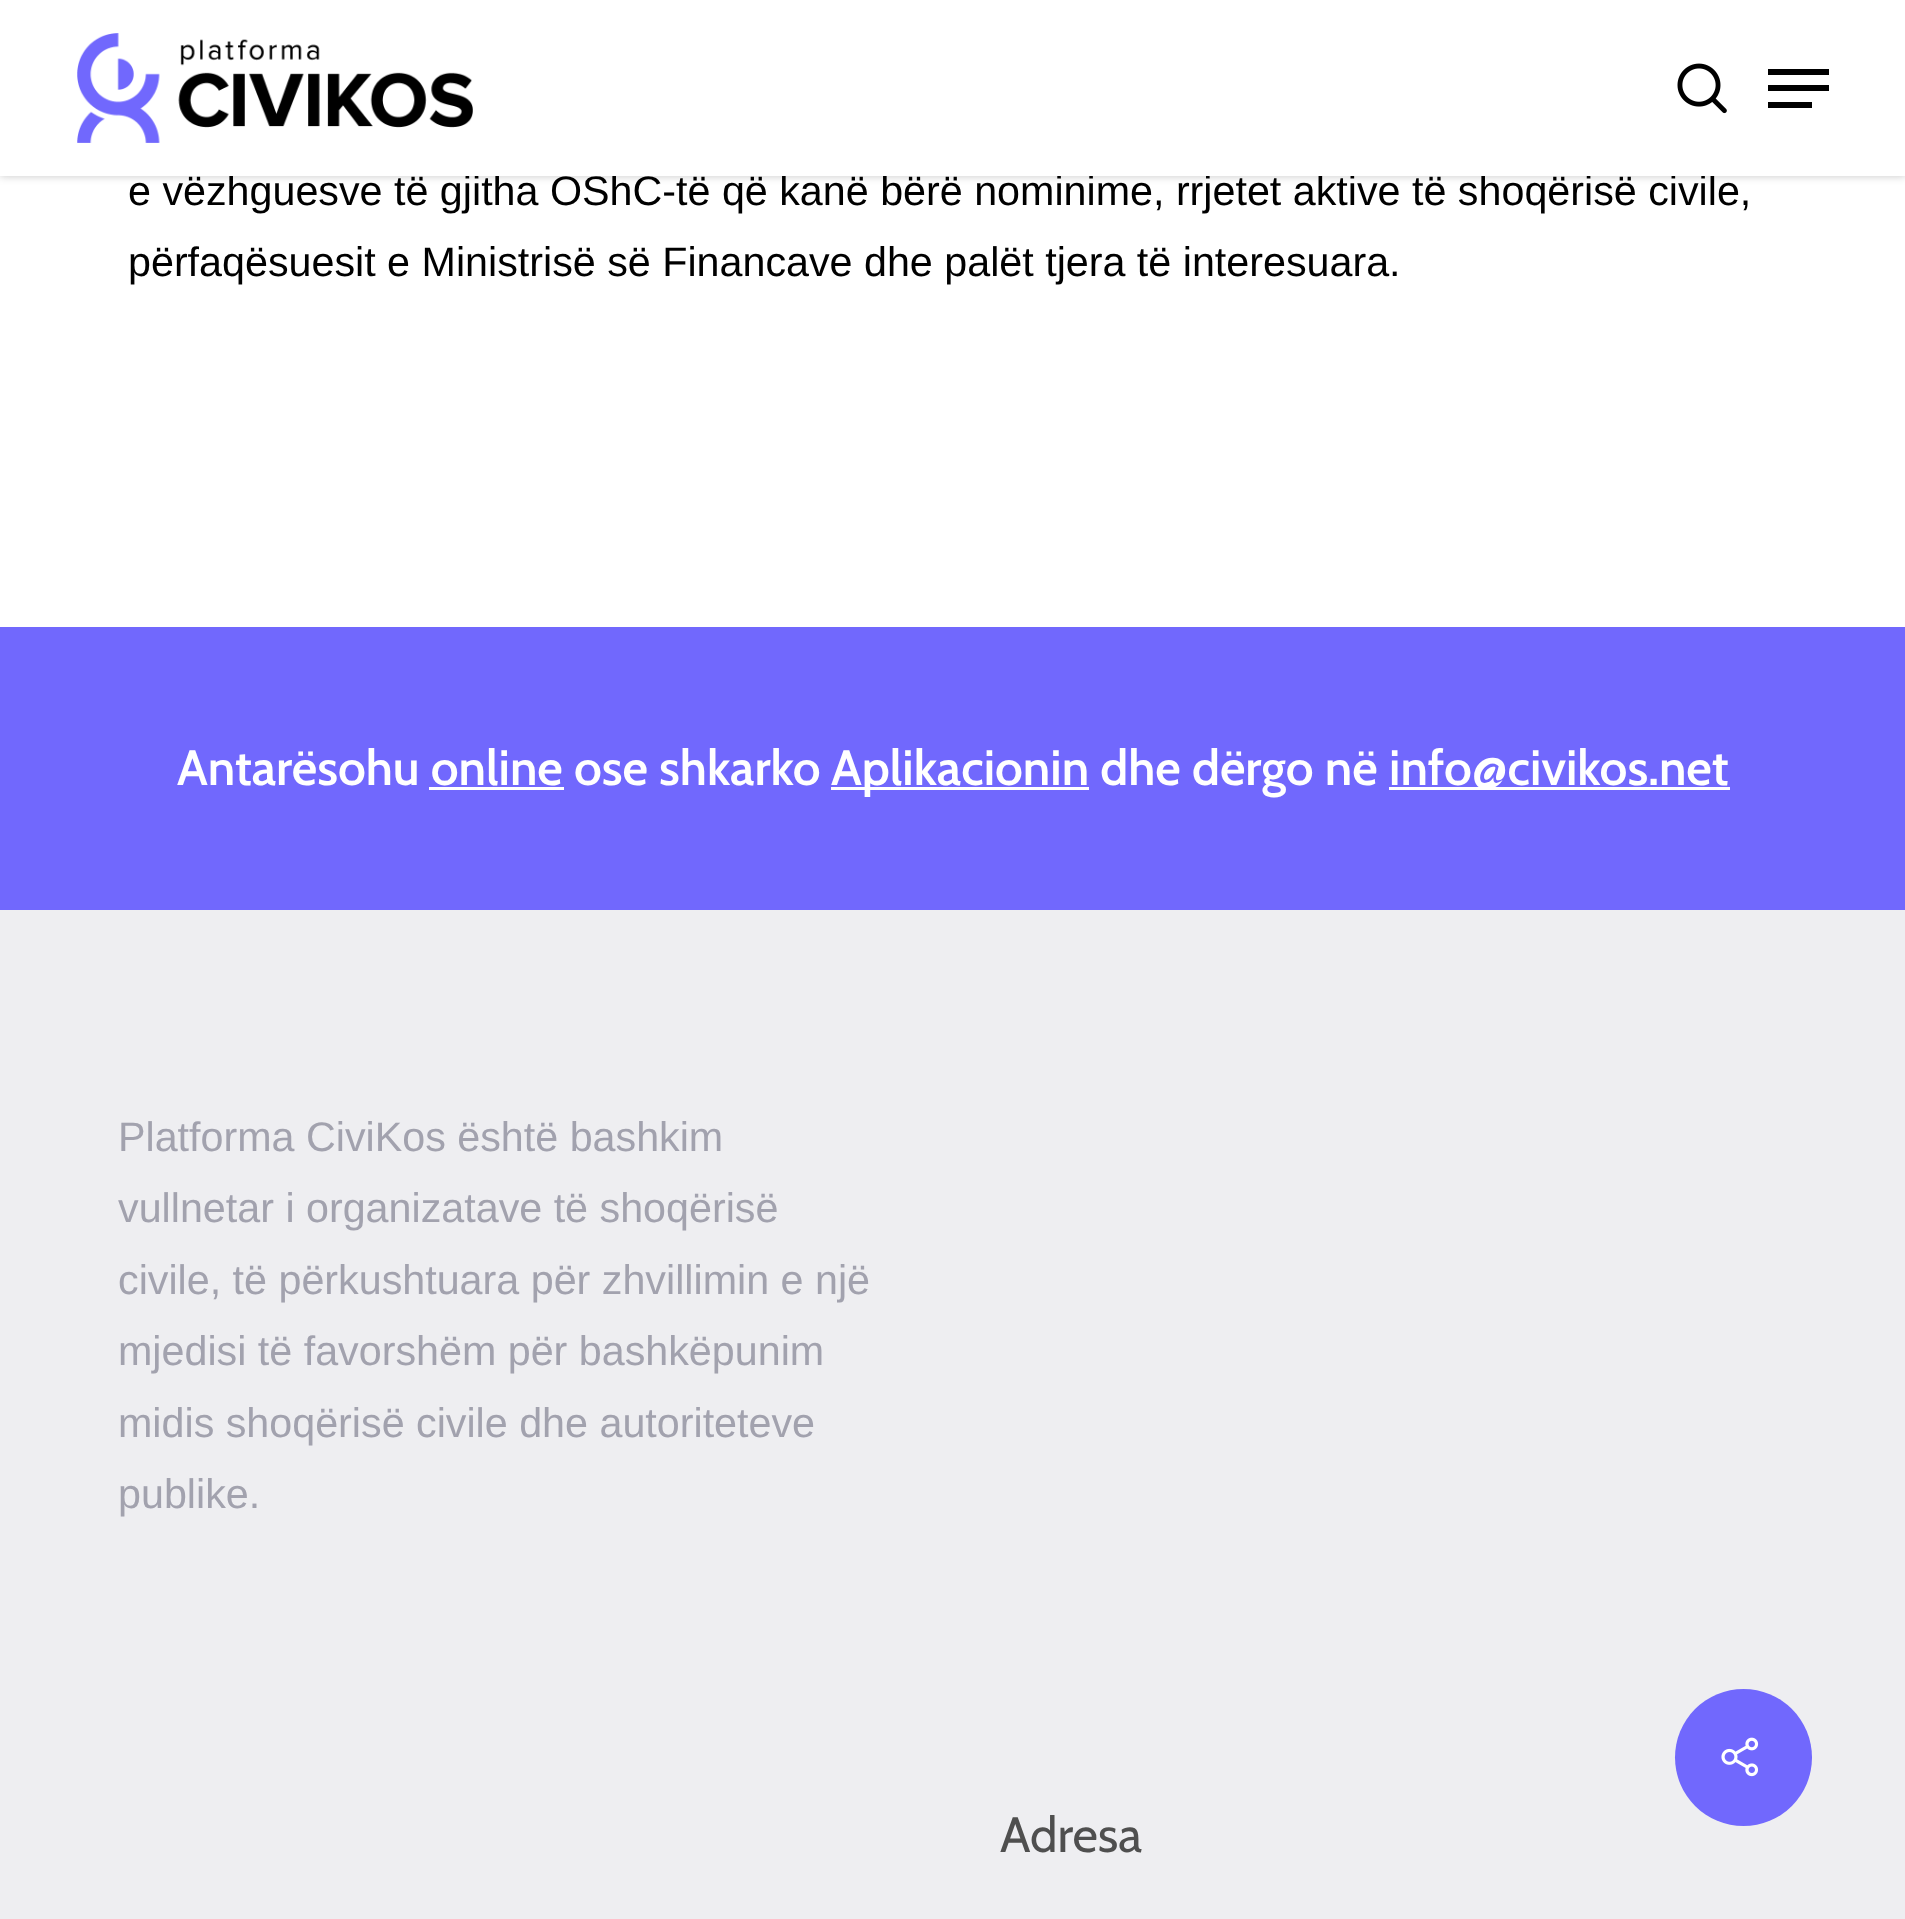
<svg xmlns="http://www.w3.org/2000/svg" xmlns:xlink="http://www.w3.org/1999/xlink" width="1905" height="1919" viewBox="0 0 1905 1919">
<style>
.cls-1{font:41.25px Liberation Sans;fill:#000000}
.cls-2{font:600 49.5px Cabin;fill:#ffffff}
.cls-3{font:41.25px Liberation Sans;fill:#a2a2ae}
.cls-4{font:49.5px Cabin;fill:#4f4f4f}
</style>
<rect width="100%" height="100%" fill="#ffffff"/>
<rect fill="#000000" fill-opacity="0.22" filter="blur(4px)" x="0" y="-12" width="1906" height="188"/>
<rect fill="#7168fd" x="0" y="627" width="1905" height="283"/>
<rect fill="#ffffff" x="831" y="787" width="258" height="3"/>
<rect fill="#ffffff" x="1389" y="787" width="341" height="3"/>
<rect fill="#ffffff" x="429" y="787" width="135" height="3"/>
<rect fill="#eeeef1" x="0" y="910" width="1905" height="1009"/>
<circle fill="#7168fd" cx="1743.5" cy="1757.5" r="68.5"/>
<image xlink:href="image2.png" x="1721" y="1737" width="38" height="40"/>
<text class="cls-1" x="128" y="205">e vëzhguesve të gjitha OShC-të që kanë bërë nominime, rrjetet aktive të shoqërisë civile,</text>
<rect fill="#ffffff" x="0" y="0" width="1905" height="176"/>
<rect fill="#000000" x="1768" y="85" width="61" height="6"/>
<rect fill="#000000" x="1768" y="69" width="61" height="6"/>
<rect fill="#000000" x="1768" y="102" width="44" height="6"/>
<image xlink:href="image1.png" x="1677" y="63" width="50" height="51"/>
<image xlink:href="image0.png" x="77" y="33" width="396" height="110"/>
<text class="cls-1" x="128" y="276">përfaqësuesit e Ministrisë së Financave dhe palët tjera të interesuara.</text>
<text class="cls-2" x="177" y="785">Antarësohu online ose shkarko</text>
<text class="cls-2" x="831" y="785">Aplikacionin dhe dërgo në</text>
<text class="cls-2" x="1389" y="785">info@civikos.net</text>
<text class="cls-3"><tspan x="118" y="1151">Platforma CiviKos është bashkim</tspan><tspan x="118" y="1222">vullnetar i organizatave të shoqërisë</tspan><tspan x="118" y="1294">civile, të përkushtuara për zhvillimin e një</tspan><tspan x="118" y="1365">mjedisi të favorshëm për bashkëpunim</tspan><tspan x="118" y="1437">midis shoqërisë civile dhe autoriteteve</tspan><tspan x="118" y="1508">publike.</tspan></text>
<text class="cls-4" x="1000" y="1852">Adresa</text>
</svg>
